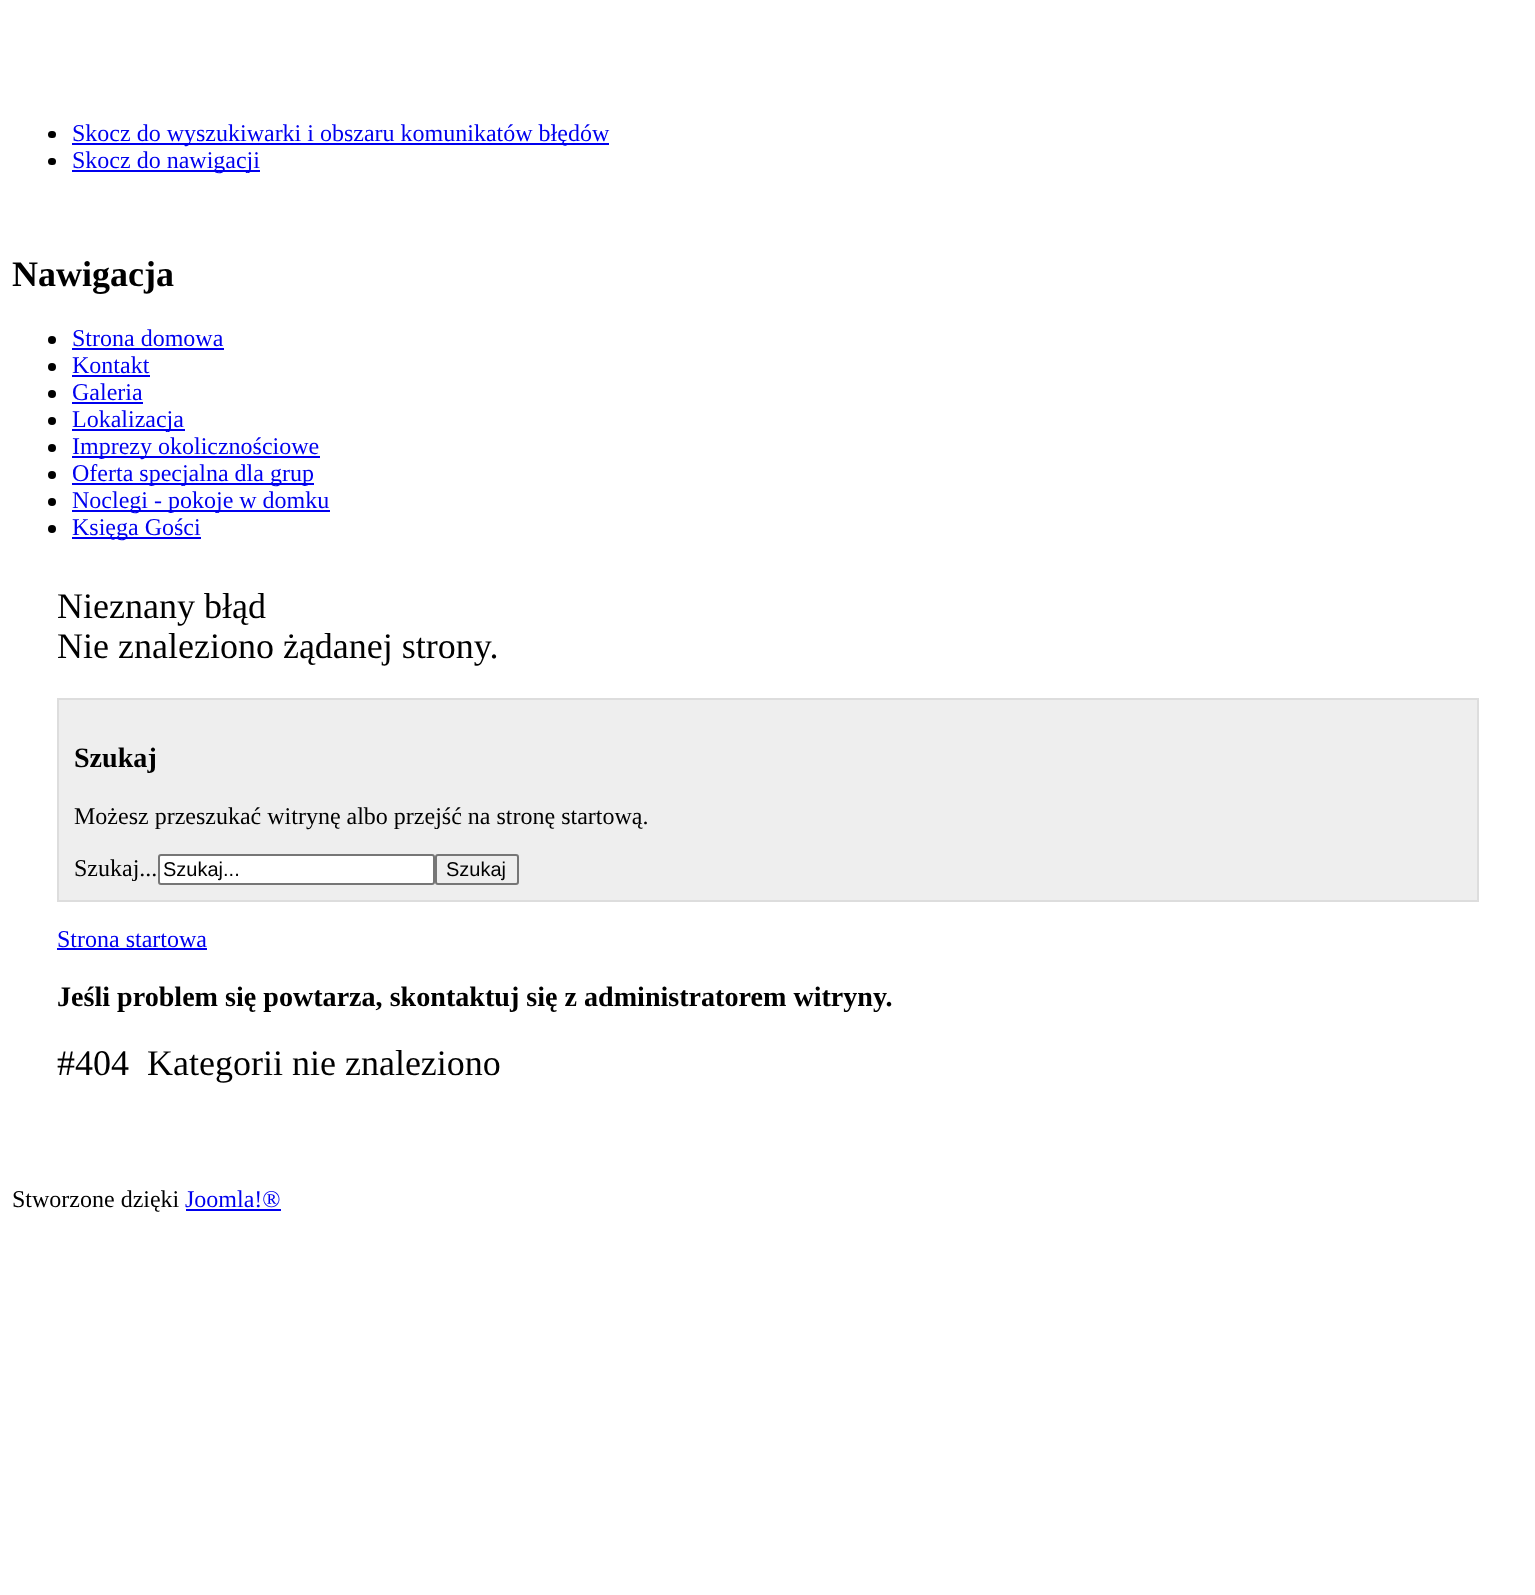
<svg xmlns="http://www.w3.org/2000/svg" xmlns:xlink="http://www.w3.org/1999/xlink" width="1535" height="1595" viewBox="0 0 1535 1595">
<style>
.cls-1{font:24px Liberation Serif;fill:#0000ee}
.cls-2{font:bold 36px Liberation Serif;fill:#000000}
.cls-3{font:36px Liberation Serif;fill:#000000}
.cls-4{font:bold 28.1px Liberation Serif;fill:#000000}
.cls-5{font:24px Liberation Serif;fill:#000000}
.cls-6{font:20px Liberation Sans;fill:#000000}
</style>
<rect width="100%" height="100%" fill="#ffffff"/>
<rect fill="#000000" x="48" y="131" width="8" height="7" rx="3.5"/>
<rect fill="#0000ee" x="72" y="143" width="537" height="2"/>
<rect fill="#000000" x="48" y="158" width="8" height="7" rx="3.5"/>
<rect fill="#0000ee" x="72" y="170" width="188" height="2"/>
<circle fill="#000000" cx="52" cy="340" r="4"/>
<rect fill="#0000ee" x="72" y="348" width="152" height="2"/>
<circle fill="#000000" cx="52" cy="367" r="4"/>
<rect fill="#0000ee" x="72" y="375" width="78" height="2"/>
<circle fill="#000000" cx="52" cy="394" r="4"/>
<rect fill="#0000ee" x="72" y="402" width="71" height="2"/>
<circle fill="#000000" cx="52" cy="421" r="4"/>
<rect fill="#0000ee" x="72" y="429" width="113" height="2"/>
<circle fill="#000000" cx="52" cy="448" r="4"/>
<rect fill="#0000ee" x="72" y="456" width="248" height="2"/>
<circle fill="#000000" cx="52" cy="475" r="4"/>
<rect fill="#0000ee" x="72" y="483" width="242" height="2"/>
<circle fill="#000000" cx="52" cy="502" r="4"/>
<rect fill="#0000ee" x="72" y="510" width="258" height="2"/>
<circle fill="#000000" cx="52" cy="529" r="4"/>
<rect fill="#0000ee" x="72" y="537" width="129" height="2"/>
<rect fill="#eeeeee" stroke="#dddddd" stroke-width="2" x="58" y="699" width="1420" height="202"/>
<rect fill="#ffffff" stroke="#767676" stroke-width="2" x="159" y="855" width="275" height="29" rx="2"/>
<rect fill="none" stroke="#767676" stroke-width="2" x="436" y="855" width="82" height="29" rx="2"/>
<rect fill="#0000ee" x="57" y="948" width="150" height="2"/>
<rect fill="#0000ee" x="186" y="1209" width="95" height="2"/>
<text class="cls-1"><tspan x="72" y="141">Skocz do wyszukiwarki i obszaru komunikatów błędów</tspan><tspan x="72" y="168">Skocz do nawigacji</tspan></text>
<text class="cls-2" x="12" y="286">Nawigacja</text>
<text class="cls-1"><tspan x="72" y="346">Strona domowa</tspan><tspan x="72" y="373">Kontakt</tspan><tspan x="72" y="400">Galeria</tspan><tspan x="72" y="427">Lokalizacja</tspan><tspan x="72" y="454">Imprezy okolicznościowe</tspan><tspan x="72" y="481">Oferta specjalna dla grup</tspan><tspan x="72" y="508">Noclegi - pokoje w domku</tspan><tspan x="72" y="535">Księga Gości</tspan></text>
<text class="cls-3"><tspan x="57" y="618">Nieznany błąd</tspan><tspan x="57" y="658">Nie znaleziono żądanej strony.</tspan></text>
<text class="cls-4" x="74" y="767">Szukaj</text>
<text class="cls-5" x="74" y="824">Możesz przeszukać witrynę albo przejść na stronę startową.</text>
<text class="cls-5" x="74" y="876">Szukaj...</text>
<text class="cls-6" x="163" y="876">Szukaj...</text>
<text class="cls-6" x="446" y="876">Szukaj</text>
<text class="cls-1" x="57" y="947">Strona startowa</text>
<text class="cls-4" x="57" y="1006">Jeśli problem się powtarza, skontaktuj się z administratorem witryny.</text>
<text class="cls-3" xml:space="preserve" x="57" y="1075">#404  Kategorii nie znaleziono</text>
<text class="cls-5" x="12" y="1207">Stworzone dzięki</text>
<text class="cls-1" x="185" y="1207">Joomla!®</text>
</svg>
